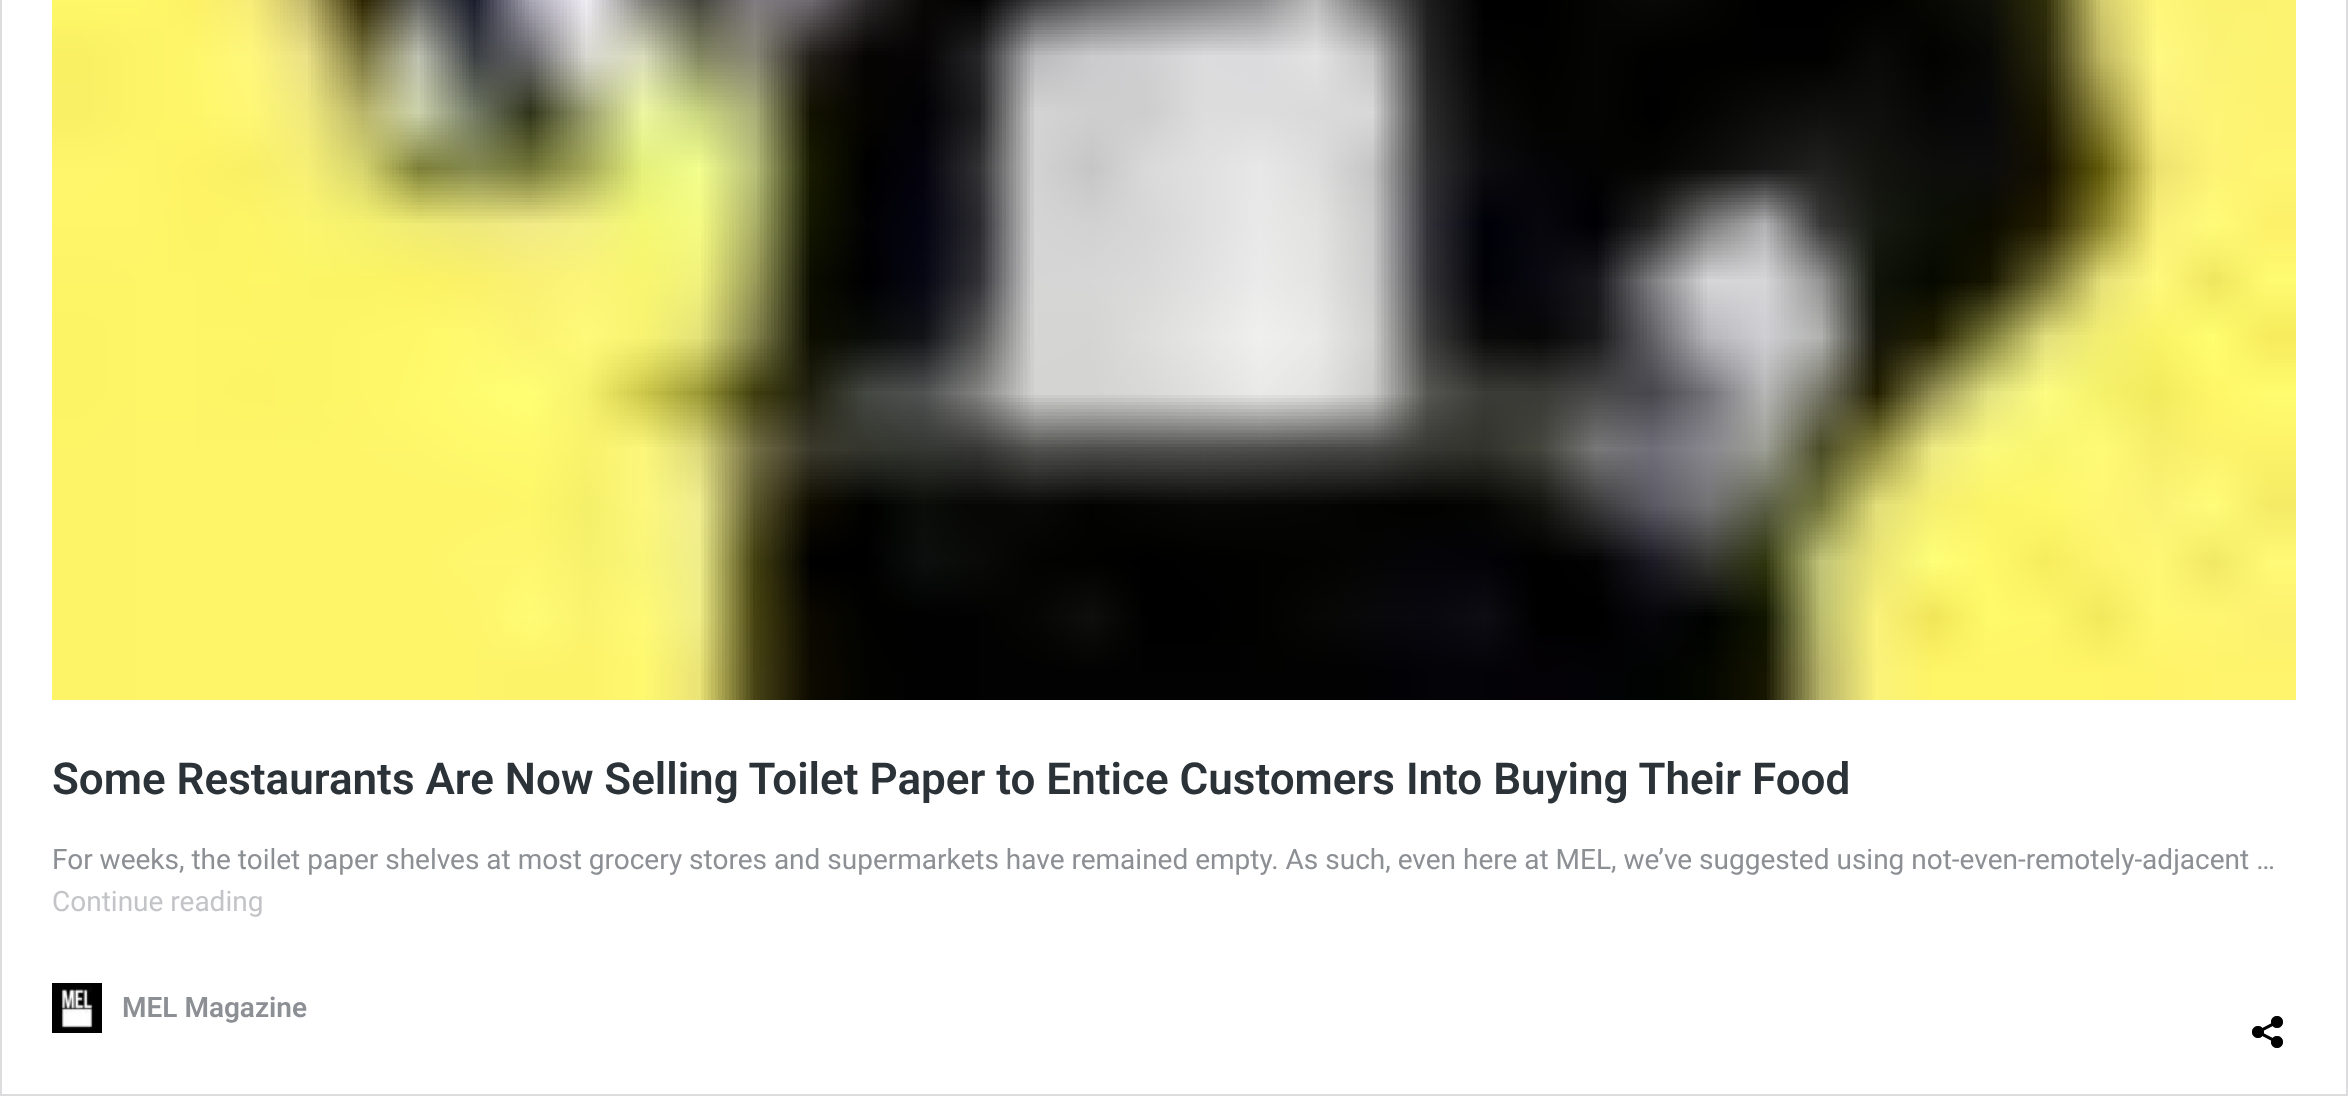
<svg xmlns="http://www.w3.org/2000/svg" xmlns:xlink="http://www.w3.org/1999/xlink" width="2348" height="1096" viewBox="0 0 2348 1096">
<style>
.cls-1{font:600 44px Roboto;fill:#2c3338}
.cls-2{font:28px Roboto;fill:#8c8f94}
.cls-3{font:28px Roboto;fill:#c3c4c7}
.cls-4{font:600 28px Roboto;fill:#8c8f94}
</style>
<rect width="100%" height="100%" fill="#ffffff"/>
<rect fill="none" stroke="#dcdcde" stroke-width="2" x="1" y="-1" width="2346" height="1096"/>
<image xlink:href="image0.png" x="52" y="0" width="2244" height="700"/>
<image xlink:href="image1.png" x="52" y="983" width="50" height="50"/>
<image xlink:href="image2.png" x="2252" y="1016" width="31" height="32"/>
<image xlink:href="image3.png" x="2252" y="1016" width="31" height="32"/>
<text class="cls-1" x="52" y="794">Some Restaurants Are Now Selling Toilet Paper to Entice Customers Into Buying Their Food</text>
<text class="cls-2" x="52" y="869">For weeks, the toilet paper shelves at most grocery stores and supermarkets have remained empty. As such, even here at MEL, we’ve suggested using not-even-remotely-adjacent …</text>
<text class="cls-3" x="52" y="911">Continue reading</text>
<text class="cls-4" x="122" y="1017">MEL Magazine</text>
</svg>
